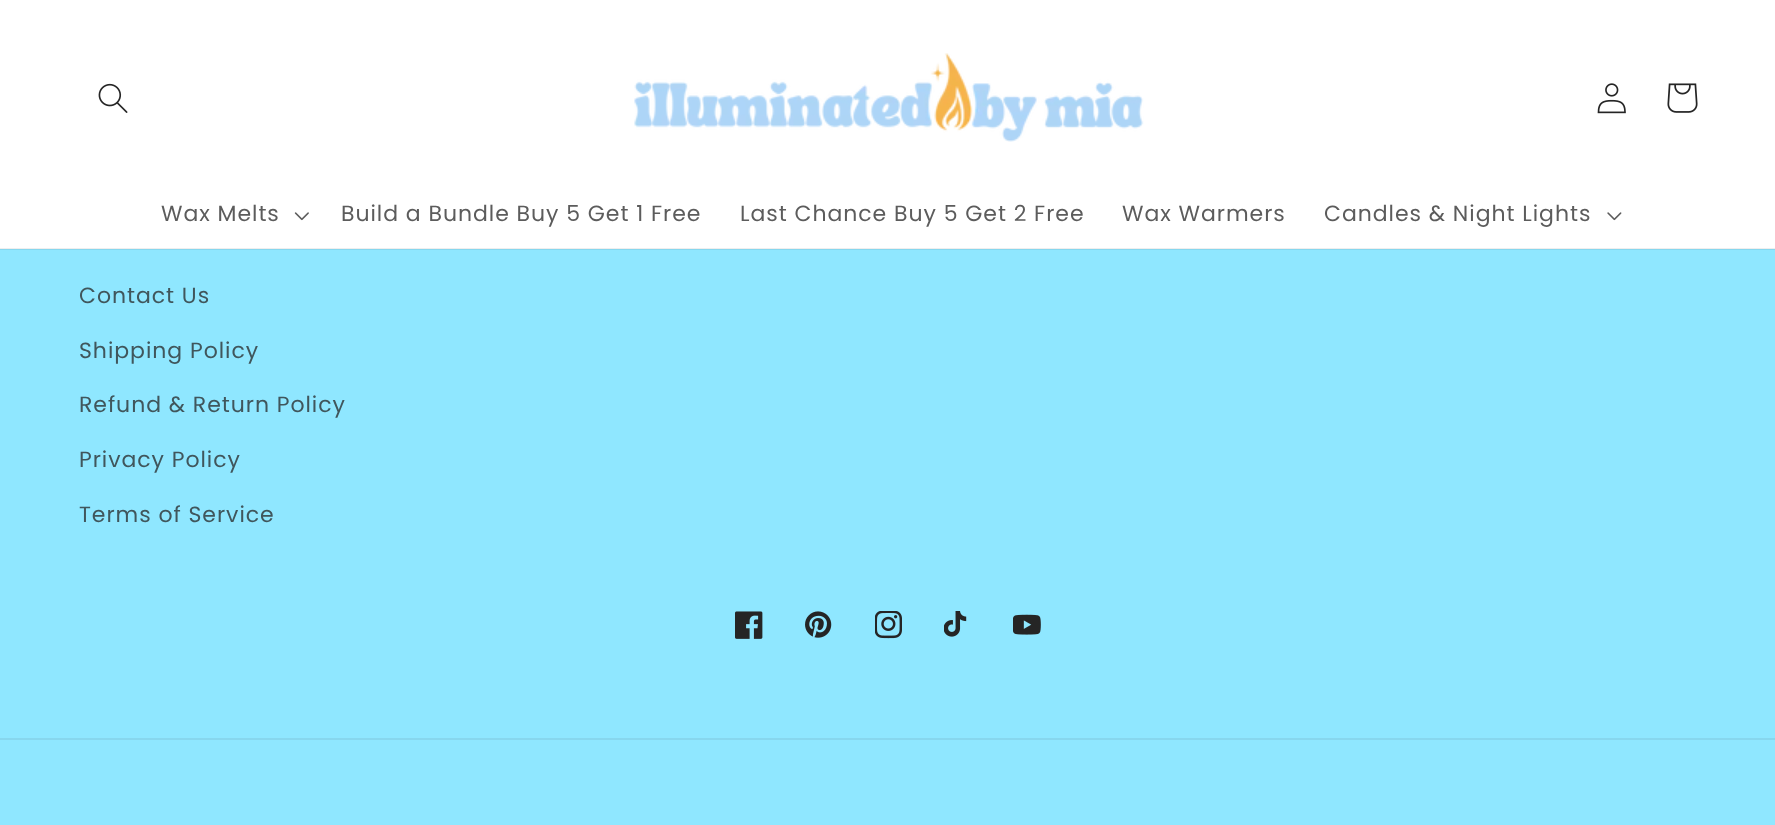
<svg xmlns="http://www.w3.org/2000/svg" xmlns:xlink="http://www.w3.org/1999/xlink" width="1775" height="825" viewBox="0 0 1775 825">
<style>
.cls-1{font:22px Poppins;letter-spacing:0.95px;fill:#5c5c5c}
.cls-2{font:22px Poppins;letter-spacing:0.95px;fill:#40565c}
</style>
<rect width="100%" height="100%" fill="#8fe7ff"/>
<rect fill="#ffffff" x="0" y="0" width="1775" height="249"/>
<rect fill="#252525" fill-opacity="0.08" x="0" y="248" width="1775" height="2"/>
<image xlink:href="image0.png" x="98" y="83" width="30" height="30"/>
<image xlink:href="image1.png" x="634" y="53" width="510" height="89"/>
<image xlink:href="image2.png" x="1597" y="83" width="29" height="31"/>
<image xlink:href="image3.png" x="1667" y="83" width="31" height="30"/>
<image xlink:href="image4.png" x="294" y="212" width="15" height="9"/>
<image xlink:href="image5.png" x="1607" y="212" width="15" height="9"/>
<image xlink:href="image6.png" x="735" y="611" width="28" height="28"/>
<image xlink:href="image7.png" x="805" y="611" width="27" height="27"/>
<image xlink:href="image8.png" x="875" y="611" width="27" height="28"/>
<image xlink:href="image9.png" x="944" y="611" width="23" height="26"/>
<image xlink:href="image10.png" x="1013" y="614" width="28" height="21"/>
<rect fill="#87d7ee" x="0" y="738" width="1775" height="2"/>
<text class="cls-1" x="161" y="221">Wax Melts</text>
<text class="cls-1" x="341" y="221">Build a Bundle Buy 5 Get 1 Free</text>
<text class="cls-1" x="740" y="221">Last Chance Buy 5 Get 2 Free</text>
<text class="cls-1" x="1122" y="221">Wax Warmers</text>
<text class="cls-1" x="1324" y="221">Candles &amp; Night Lights</text>
<text class="cls-2" x="79" y="303">Contact Us</text>
<text class="cls-2" x="79" y="358">Shipping Policy</text>
<text class="cls-2" x="79" y="412">Refund &amp; Return Policy</text>
<text class="cls-2" x="79" y="467">Privacy Policy</text>
<text class="cls-2" x="79" y="522">Terms of Service</text>
</svg>
